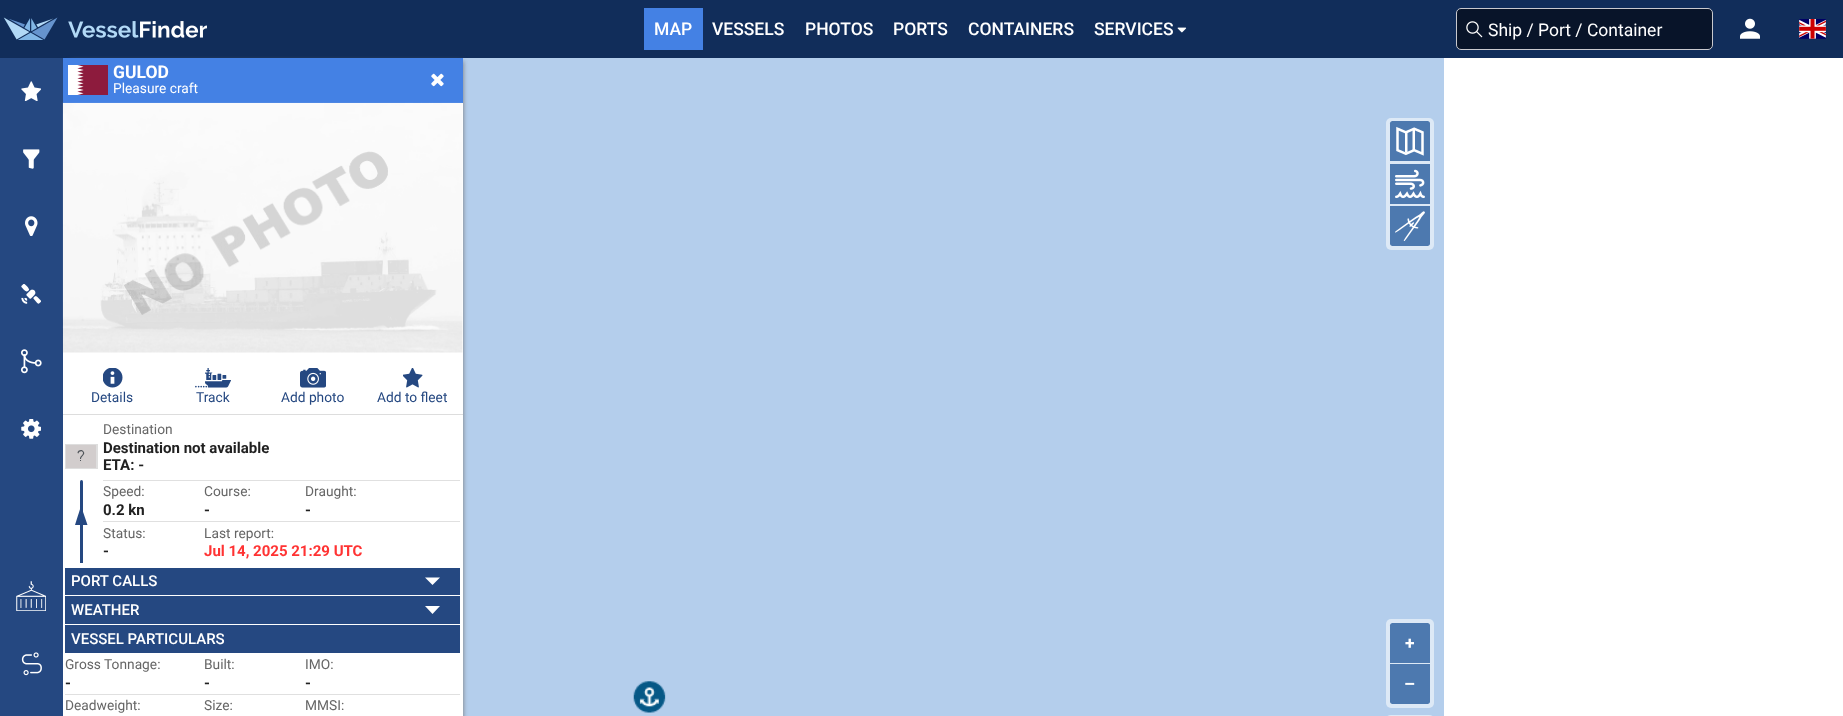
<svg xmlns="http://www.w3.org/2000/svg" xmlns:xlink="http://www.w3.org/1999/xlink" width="1843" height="716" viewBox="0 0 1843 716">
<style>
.cls-1{font:500 17.5px Roboto;fill:#ffffff}
.cls-2{font:17.5px Roboto;fill:#ffffff}
.cls-3{font:bold 17.5px Roboto;fill:#ffffff}
.cls-4{font:13.75px Roboto;fill:#ffffff}
.cls-5{font:13.75px Roboto;fill:#254881}
.cls-6{font:13.75px Roboto;fill:#666666}
.cls-7{font:bold 15px Roboto;fill:#212121}
.cls-8{font:bold 15px Roboto;fill:#ff3333}
.cls-9{font:500 15px Roboto;fill:#ffffff}
</style>
<rect width="100%" height="100%" fill="#ffffff"/>
<rect fill="#112d5a" x="0" y="0" width="1843" height="58"/>
<image xlink:href="image0.png" x="3" y="17" width="55" height="23"/>
<image xlink:href="image1.png" x="68" y="21" width="139" height="17"/>
<rect fill="#4481e4" x="644" y="8" width="59" height="42"/>
<image xlink:href="image2.png" x="1177" y="27" width="10" height="6"/>
<rect fill="#081429" stroke="#c9c9ce" x="1456.5" y="8.5" width="256" height="41" rx="4.5"/>
<image xlink:href="image3.png" x="1466" y="21" width="17" height="17"/>
<image xlink:href="image4.png" x="1740" y="18" width="20" height="21"/>
<image xlink:href="image5.png" x="1799" y="19" width="27" height="20"/>
<rect fill="#254881" x="0" y="58" width="63" height="658"/>
<image xlink:href="image6.png" x="21" y="81" width="20" height="20"/>
<image xlink:href="image7.png" x="23" y="149" width="17" height="20"/>
<image xlink:href="image8.png" x="25" y="216" width="13" height="20"/>
<image xlink:href="image9.png" x="21" y="284" width="20" height="20"/>
<image xlink:href="image10.png" x="21" y="349" width="21" height="25"/>
<image xlink:href="image11.png" x="21" y="419" width="20" height="20"/>
<image xlink:href="image12.png" x="16" y="581" width="30" height="30"/>
<image xlink:href="image13.png" x="21" y="652" width="21" height="24"/>
<rect fill="#b4ceec" x="463" y="58" width="981" height="658"/>
<rect fill="#777777" filter="blur(2.5px)" x="70" y="61" width="393" height="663"/>
<rect fill="#ffffff" x="65" y="103" width="398" height="613"/>
<rect fill="#4481e4" x="63" y="58" width="400" height="45"/>
<image xlink:href="image14.png" x="68" y="65" width="40" height="30"/>
<image xlink:href="image15.png" x="431" y="73" width="13" height="14"/>
<image xlink:href="image16.png" x="62" y="102" width="401" height="251"/>
<rect fill="#dddddd" x="63" y="414" width="400" height="1"/>
<image xlink:href="image17.png" x="103" y="368" width="20" height="20"/>
<image xlink:href="image18.png" x="195" y="368" width="36" height="20"/>
<image xlink:href="image19.png" x="300" y="368" width="26" height="20"/>
<image xlink:href="image20.png" x="403" y="368" width="20" height="20"/>
<rect fill="#dedede" filter="blur(0.5px)" x="65" y="444" width="33" height="25"/>
<rect fill="#d2cdcd" x="66" y="445" width="30" height="23"/>
<path fill="#4f5459" d="M80 459C80 455.5 83 455.5 83 453C83 450.5 79 450.5 78.5 453.5L77.5 453C77.5 451 79 450 81 450C82 450 83 450.5 83.5 451.5C86 454.5 81.5 455.5 81 459ZM80 461V460H81V461Z"/>
<rect fill="#254881" x="80" y="480" width="3" height="83" rx="1.5"/>
<path fill="#254881" d="M87.5 525H75L81 506Z"/>
<rect fill="#254881" x="80" y="561" width="3" height="2"/>
<rect fill="#e0e0e0" x="103" y="480" width="357" height="1"/>
<rect fill="#e0e0e0" x="103" y="521" width="357" height="1"/>
<rect fill="#254881" x="65" y="568" width="395" height="27"/>
<path fill="#ffffff" d="M425 577.5H440L432.5 585Z"/>
<rect fill="#254881" x="65" y="596" width="395" height="28"/>
<path fill="#ffffff" d="M425 606H440L432.5 614Z"/>
<rect fill="#254881" x="65" y="625" width="395" height="28"/>
<rect fill="#e0e0e0" x="65" y="694" width="395" height="1"/>
<rect fill="#dde9f6" x="1386" y="118" width="48" height="132" rx="5"/>
<path fill="#4d79af" d="M1392.5 121H1427.5C1429 121 1430 122 1430 123.5V161H1390V123.5C1390 122 1391 121 1392.5 121Z"/>
<image xlink:href="image21.png" x="1396" y="126" width="28" height="30"/>
<rect fill="#4d79af" x="1390" y="164" width="40" height="40"/>
<image xlink:href="image22.png" x="1395" y="169" width="30" height="30"/>
<path fill="#4d79af" d="M1390 206H1430V243.5C1430 245 1429 246 1427.5 246H1392.5C1391 246 1390 245 1390 243.5Z"/>
<image xlink:href="image23.png" x="1395" y="211" width="30" height="30"/>
<rect fill="#dde9f6" x="1386" y="619" width="48" height="89" rx="5"/>
<path fill="#4d79af" d="M1392.5 623H1427.5C1429 623 1430 624 1430 625.5V663H1390V625.5C1390 624 1391 623 1392.5 623Z"/>
<path fill="#4d79af" d="M1390 664H1430V701.5C1430 703 1429 704 1427.5 704H1392.5C1391 704 1390 703 1390 701.5Z"/>
<rect fill="#dde9f6" x="1386" y="715" width="48" height="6" rx="5"/>
<image xlink:href="image24.png" x="633" y="681" width="33" height="32"/>
<text class="cls-1" x="654" y="35">MAP</text>
<text class="cls-1" x="712" y="35">VESSELS</text>
<text class="cls-1" x="805" y="35">PHOTOS</text>
<text class="cls-1" x="893" y="35">PORTS</text>
<text class="cls-1" x="968" y="35">CONTAINERS</text>
<text class="cls-1" x="1094" y="35">SERVICES</text>
<text class="cls-2" x="1488" y="36">Ship / Port / Container</text>
<text class="cls-3" x="113" y="78">GULOD</text>
<text class="cls-4" x="113" y="93">Pleasure craft</text>
<text class="cls-5" x="91" y="402">Details</text>
<text class="cls-5" x="196" y="402">Track</text>
<text class="cls-5" x="281" y="402">Add photo</text>
<text class="cls-5" x="377" y="402">Add to fleet</text>
<text class="cls-6" x="103" y="434">Destination</text>
<text class="cls-7"><tspan x="103" y="453">Destination not available</tspan><tspan x="103" y="470">ETA: -</tspan></text>
<text class="cls-6" x="103" y="496">Speed:</text>
<text class="cls-7" x="103" y="515">0.2 kn</text>
<text class="cls-6" x="204" y="496">Course:</text>
<text class="cls-7" x="204" y="515">-</text>
<text class="cls-6" x="305" y="496">Draught:</text>
<text class="cls-7" x="305" y="515">-</text>
<text class="cls-6" x="103" y="538">Status:</text>
<text class="cls-7" x="103" y="556">-</text>
<text class="cls-6" x="204" y="538">Last report:</text>
<text class="cls-8" x="204" y="556">Jul 14, 2025 21:29 UTC</text>
<text class="cls-9"><tspan x="71" y="586">PORT CALLS</tspan><tspan x="71" y="615">WEATHER</tspan><tspan x="71" y="644">VESSEL PARTICULARS</tspan></text>
<text class="cls-6" x="65" y="669">Gross Tonnage:</text>
<text class="cls-7" x="65" y="688">-</text>
<text class="cls-6" x="204" y="669">Built:</text>
<text class="cls-7" x="204" y="688">-</text>
<text class="cls-6" x="305" y="669">IMO:</text>
<text class="cls-7" x="305" y="688">-</text>
<text class="cls-6" x="65" y="710">Deadweight:</text>
<text class="cls-6" x="204" y="710">Size:</text>
<text class="cls-6" x="305" y="710">MMSI:</text>
<text class="cls-3" x="1405" y="649">+</text>
<text class="cls-3" x="1404" y="690">–</text>
</svg>
